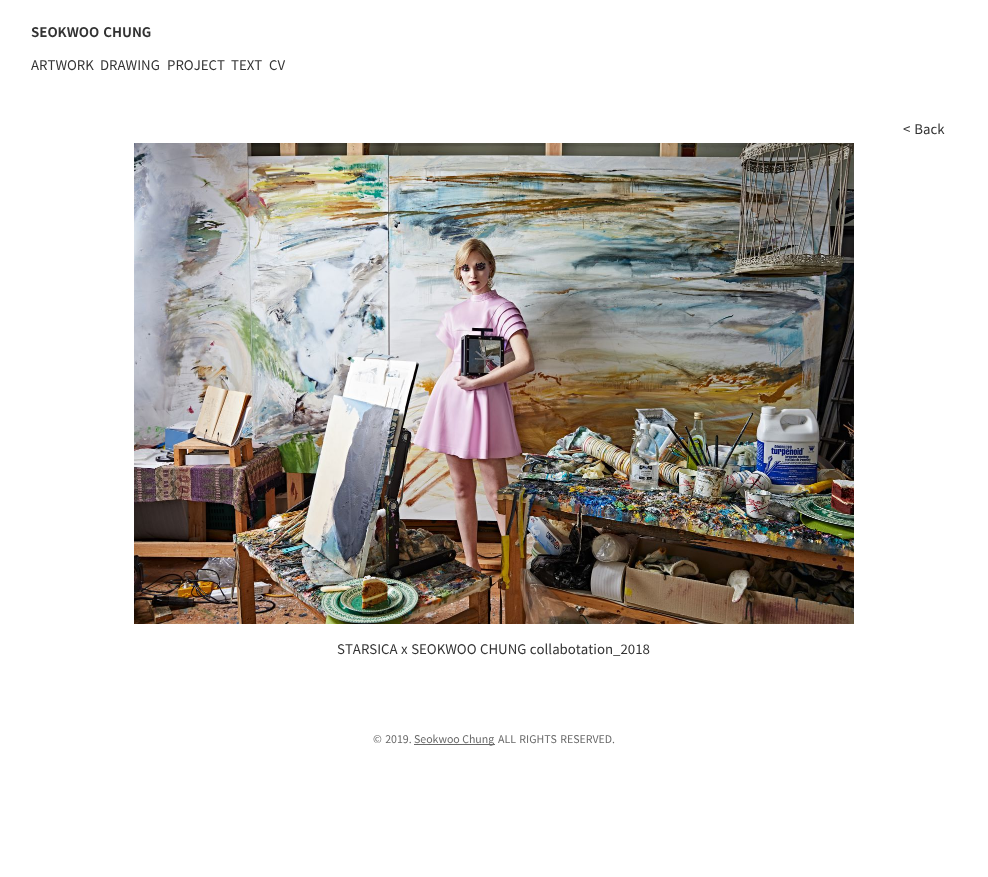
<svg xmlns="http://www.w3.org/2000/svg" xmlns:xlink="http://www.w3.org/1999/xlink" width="988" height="877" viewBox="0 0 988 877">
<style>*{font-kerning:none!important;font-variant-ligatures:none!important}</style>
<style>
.cls-1{font:bold 13.25px Noto Sans KR;fill:#333333}
.cls-2{font:13.25px Noto Sans KR;fill:#333333}
.cls-3{font:10.6px Noto Sans KR;fill:#696969}
</style>
<rect width="100%" height="100%" fill="#ffffff"/>
<image xlink:href="image0.png" x="134" y="143" width="720" height="481"/>
<rect fill="#696969" x="414" y="744" width="81" height="1"/>
<text class="cls-1" x="31" y="37" word-spacing="1">SEOKWOO CHUNG</text>
<text class="cls-2" x="31" y="70">ARTWORK</text>
<text class="cls-2" x="100" y="70">DRAWING</text>
<text class="cls-2" x="167" y="70">PROJECT</text>
<text class="cls-2" x="231" y="70">TEXT</text>
<text class="cls-2" x="269" y="70">CV</text>
<text class="cls-2" x="903" y="134" word-spacing="1">&lt; Back</text>
<text class="cls-2" x="337" y="654" word-spacing="0.5">STARSICA x SEOKWOO CHUNG collabotation_2018</text>
<text class="cls-3" x="373" y="743" word-spacing="1">© 2019.</text>
<text class="cls-3" x="414" y="743">Seokwoo Chung</text>
<text class="cls-3" x="498" y="743" word-spacing="1">ALL RIGHTS RESERVED.</text>
</svg>
